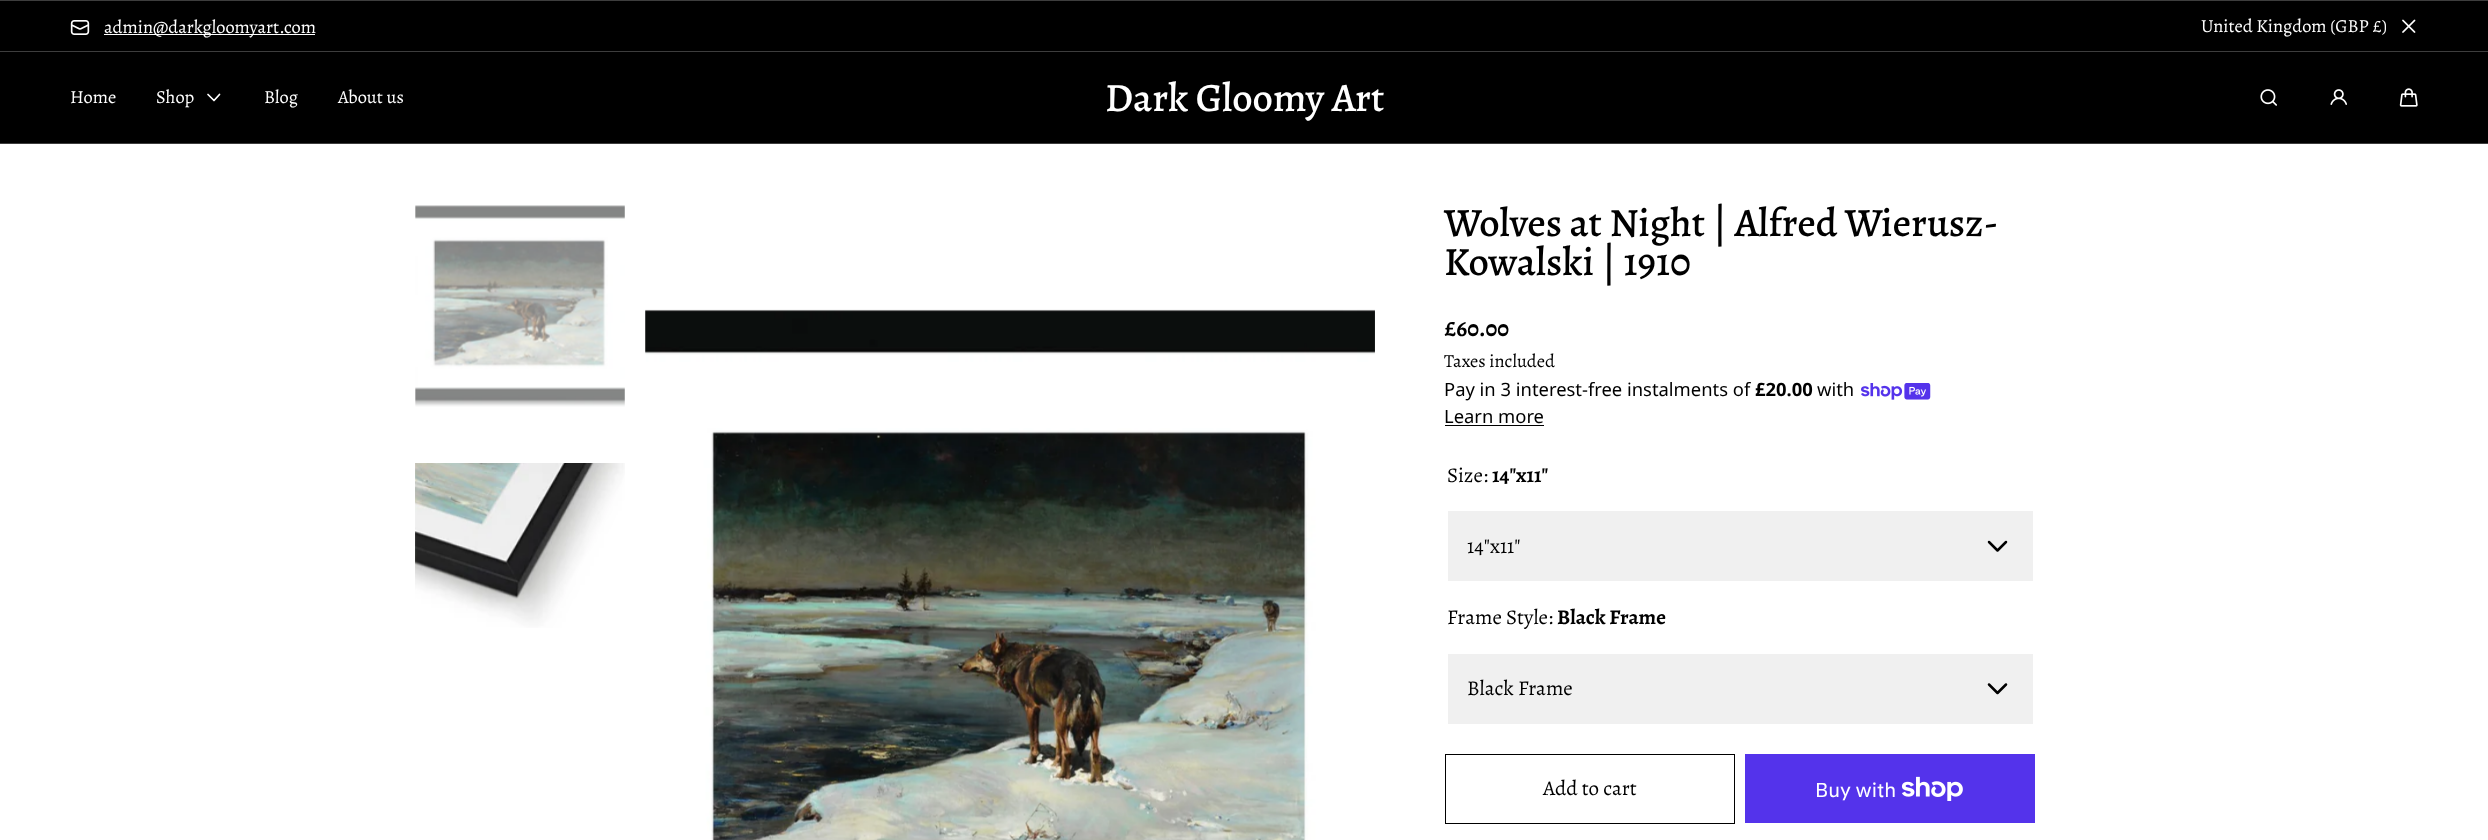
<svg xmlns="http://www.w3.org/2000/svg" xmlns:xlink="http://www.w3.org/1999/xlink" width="2488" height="840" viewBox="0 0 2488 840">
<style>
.cls-1{font:18.4px Alegreya;fill:#ffffff}
.cls-2{font:500 40.25px Alegreya;fill:#ffffff}
.cls-3{font:500 40.25px Alegreya;fill:#000000}
.cls-4{font:bold 23.5px Alegreya;fill:#000000}
.cls-5{font:18.4px Alegreya;fill:#000000}
.cls-6{font:18.4px Noto Sans;fill:#000000}
.cls-7{font:bold 18.4px Noto Sans;fill:#000000}
.cls-8{font:21px Alegreya;fill:#000000}
.cls-9{font:bold 21px Alegreya;fill:#000000}
.cls-10{font:20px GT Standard;fill:#ffffff}
</style>
<rect width="100%" height="100%" fill="#ffffff"/>
<rect fill="#000000" x="0" y="1" width="2488" height="142"/>
<rect fill="#3d3d3d" x="0" y="0" width="2488" height="1"/>
<rect fill="#3d3d3d" x="0" y="51" width="2488" height="1"/>
<image xlink:href="image0.png" x="70" y="20" width="20" height="15"/>
<rect fill="#ffffff" x="104" y="34" width="211" height="1"/>
<image xlink:href="image1.png" x="2402" y="19" width="14" height="14"/>
<rect fill="#3d3d3d" x="0" y="143" width="2488" height="1"/>
<path fill="none" stroke="#ffffff" stroke-width="1.7" stroke-linecap="round" stroke-linejoin="round" d="M208 94.5L214 100.5L219.5 94.5"/>
<image xlink:href="image2.png" x="2260" y="89" width="17" height="17"/>
<image xlink:href="image3.png" x="2330" y="89" width="17" height="16"/>
<image xlink:href="image4.png" x="2399" y="88" width="19" height="19"/>
<image xlink:href="image5.png" x="415" y="205" width="210" height="202"/>
<image xlink:href="image6.png" x="415" y="463" width="210" height="165"/>
<image xlink:href="image7.png" x="645" y="309" width="730" height="531"/>
<image xlink:href="image8.png" x="1861" y="383" width="70" height="17"/>
<rect fill="#000000" x="1445" y="425" width="99" height="1"/>
<rect fill="#f0f0f0" x="1448" y="511" width="585" height="70"/>
<path fill="none" stroke="#000000" stroke-width="2.5" stroke-linecap="round" stroke-linejoin="round" d="M1989 542L1997.5 550.5L2006 542"/>
<rect fill="#f0f0f0" x="1448" y="654" width="585" height="70"/>
<path fill="none" stroke="#000000" stroke-width="2.5" stroke-linecap="round" stroke-linejoin="round" d="M1989 684.5L1997.5 693L2006 684.5"/>
<rect fill="none" stroke="#000000" x="1445.5" y="754.5" width="289" height="69"/>
<rect fill="#5433eb" x="1745" y="754" width="290" height="69"/>
<image xlink:href="image9.png" x="1901" y="776" width="62" height="25"/>
<text class="cls-1" x="104" y="33">admin@darkgloomyart.com</text>
<text class="cls-1" x="2201" y="32">United Kingdom (GBP £)</text>
<text class="cls-1" x="70" y="103">Home</text>
<text class="cls-1" x="156" y="103">Shop</text>
<text class="cls-1" x="264" y="103">Blog</text>
<text class="cls-1" x="338" y="103">About us</text>
<text class="cls-2" x="1105" y="111">Dark Gloomy Art</text>
<text class="cls-3"><tspan x="1444" y="236">Wolves at Night | Alfred Wierusz-</tspan><tspan x="1444" y="275">Kowalski | 1910</tspan></text>
<text class="cls-4" x="1444" y="336">£60.00</text>
<text class="cls-5" x="1444" y="367">Taxes included</text>
<text class="cls-6" x="1444" y="396">Pay in 3 interest-free instalments of</text>
<text class="cls-7" x="1755" y="396">£20.00</text>
<text class="cls-6" x="1817" y="396">with</text>
<text class="cls-6" x="1444" y="423">Learn more</text>
<text class="cls-8" x="1447" y="482">Size:</text>
<text class="cls-9" x="1492" y="482">14"x11"</text>
<text class="cls-8" x="1467" y="553">14"x11"</text>
<text class="cls-8" x="1447" y="624">Frame Style:</text>
<text class="cls-9" x="1557" y="624">Black Frame</text>
<text class="cls-8" x="1467" y="695">Black Frame</text>
<text class="cls-8" x="1543" y="795">Add to cart</text>
<text class="cls-10" x="1815" y="797">Buy with</text>
</svg>
